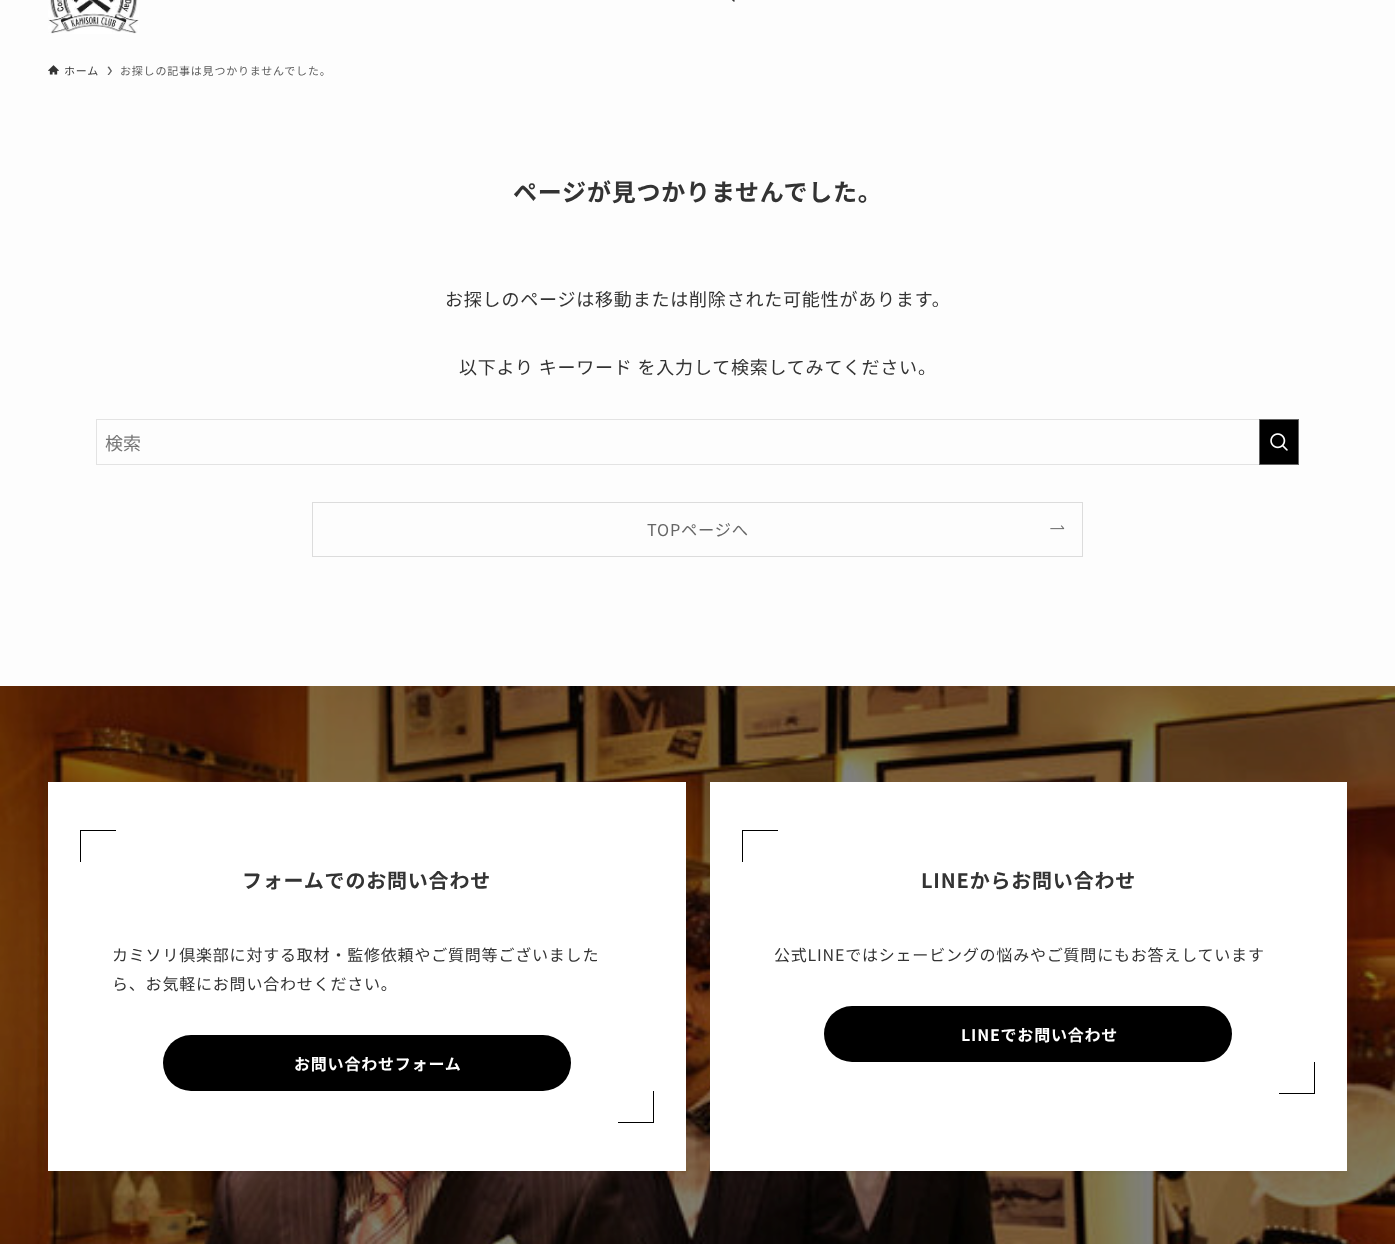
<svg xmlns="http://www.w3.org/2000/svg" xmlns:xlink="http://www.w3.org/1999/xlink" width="1395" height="1244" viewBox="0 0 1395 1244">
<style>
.cls-1{font:11px Noto Sans JP;letter-spacing:0.8px;fill:#333333}
.cls-2{font:11px Noto Sans JP;letter-spacing:0.8px;fill:#5b5b5b}
.cls-3{font:bold 24px Noto Sans JP;letter-spacing:0.8px;fill:#333333}
.cls-4{font:18px Noto Sans JP;letter-spacing:0.8px;fill:#333333}
.cls-5{font:18px Noto Sans JP;fill:#757575}
.cls-6{font:16.25px Noto Sans JP;letter-spacing:0.8px;fill:#666666}
.cls-7{font:bold 20px Noto Sans JP;letter-spacing:0.8px;fill:#333333}
.cls-8{font:16px Noto Sans JP;letter-spacing:0.8px;fill:#333333}
.cls-9{font:bold 16px Noto Sans JP;letter-spacing:0.8px;fill:#ffffff}
</style>
<rect width="100%" height="100%" fill="#fdfdfd"/>
<image xlink:href="image0.png" x="48" y="0" width="91" height="34"/>
<image xlink:href="image1.png" x="732" y="0" width="3" height="2"/>
<image xlink:href="image2.png" x="48" y="65" width="11" height="10"/>
<path fill="#5b5b5b" d="M109 66.5L107.5 67L110.5 71L107.5 75H109L112 71Z"/>
<rect fill="none" stroke="#e3e3e3" x="96.5" y="419.5" width="1202" height="45"/>
<rect fill="#000000" stroke="#646464" x="1259.5" y="419.5" width="39" height="45"/>
<image xlink:href="image3.png" x="1270" y="433" width="18" height="18"/>
<rect fill="none" stroke="#dcdcdc" x="312.5" y="502.5" width="770" height="54"/>
<image xlink:href="image4.png" x="1050" y="525" width="15" height="5"/>
<image xlink:href="image5.png" x="0" y="686" width="1395" height="558"/>
<rect fill="#000000" fill-opacity="0.1" filter="blur(2px)" x="52" y="790" width="630" height="381"/>
<rect fill="#ffffff" x="48" y="782" width="638" height="389"/>
<rect fill="#000000" x="80" y="830" width="36" height="1"/>
<rect fill="#000000" x="80" y="830" width="1" height="32"/>
<rect fill="#000000" x="163" y="1035" width="408" height="56" rx="28"/>
<rect fill="#000000" x="653" y="1091" width="1" height="32"/>
<rect fill="#000000" x="618" y="1122" width="36" height="1"/>
<rect fill="#000000" fill-opacity="0.1" filter="blur(2px)" x="714" y="790" width="629" height="381"/>
<rect fill="#ffffff" x="710" y="782" width="637" height="389"/>
<rect fill="#000000" x="742" y="830" width="36" height="1"/>
<rect fill="#000000" x="742" y="830" width="1" height="32"/>
<rect fill="#000000" x="824" y="1006" width="408" height="56" rx="28"/>
<rect fill="#000000" x="1314" y="1062" width="1" height="32"/>
<rect fill="#000000" x="1279" y="1093" width="36" height="1"/>
<text class="cls-1" x="64" y="75">ホーム</text>
<text class="cls-2" x="120" y="75">お探しの記事は見つかりませんでした。</text>
<text class="cls-3" x="513" y="201">ページが見つかりませんでした。</text>
<text class="cls-4" x="445" y="306">お探しのページは移動または削除された可能性があります。</text>
<text class="cls-4" x="459" y="374">以下より キーワード を入力して検索してみてください。</text>
<text class="cls-5" x="105" y="450">検索</text>
<text class="cls-6" x="647" y="536">TOPページへ</text>
<text class="cls-7" x="242" y="888">フォームでのお問い合わせ</text>
<text class="cls-8"><tspan x="112" y="961">カミソリ倶楽部に対する取材・監修依頼やご質問等ございました</tspan><tspan x="112" y="990">ら、お気軽にお問い合わせください。</tspan></text>
<text class="cls-9" x="294" y="1070">お問い合わせフォーム</text>
<text class="cls-7" x="921" y="888">LINEからお問い合わせ</text>
<text class="cls-8" x="774" y="961">公式LINEではシェービングの悩みやご質問にもお答えしています</text>
<text class="cls-9" x="961" y="1041">LINEでお問い合わせ</text>
</svg>
